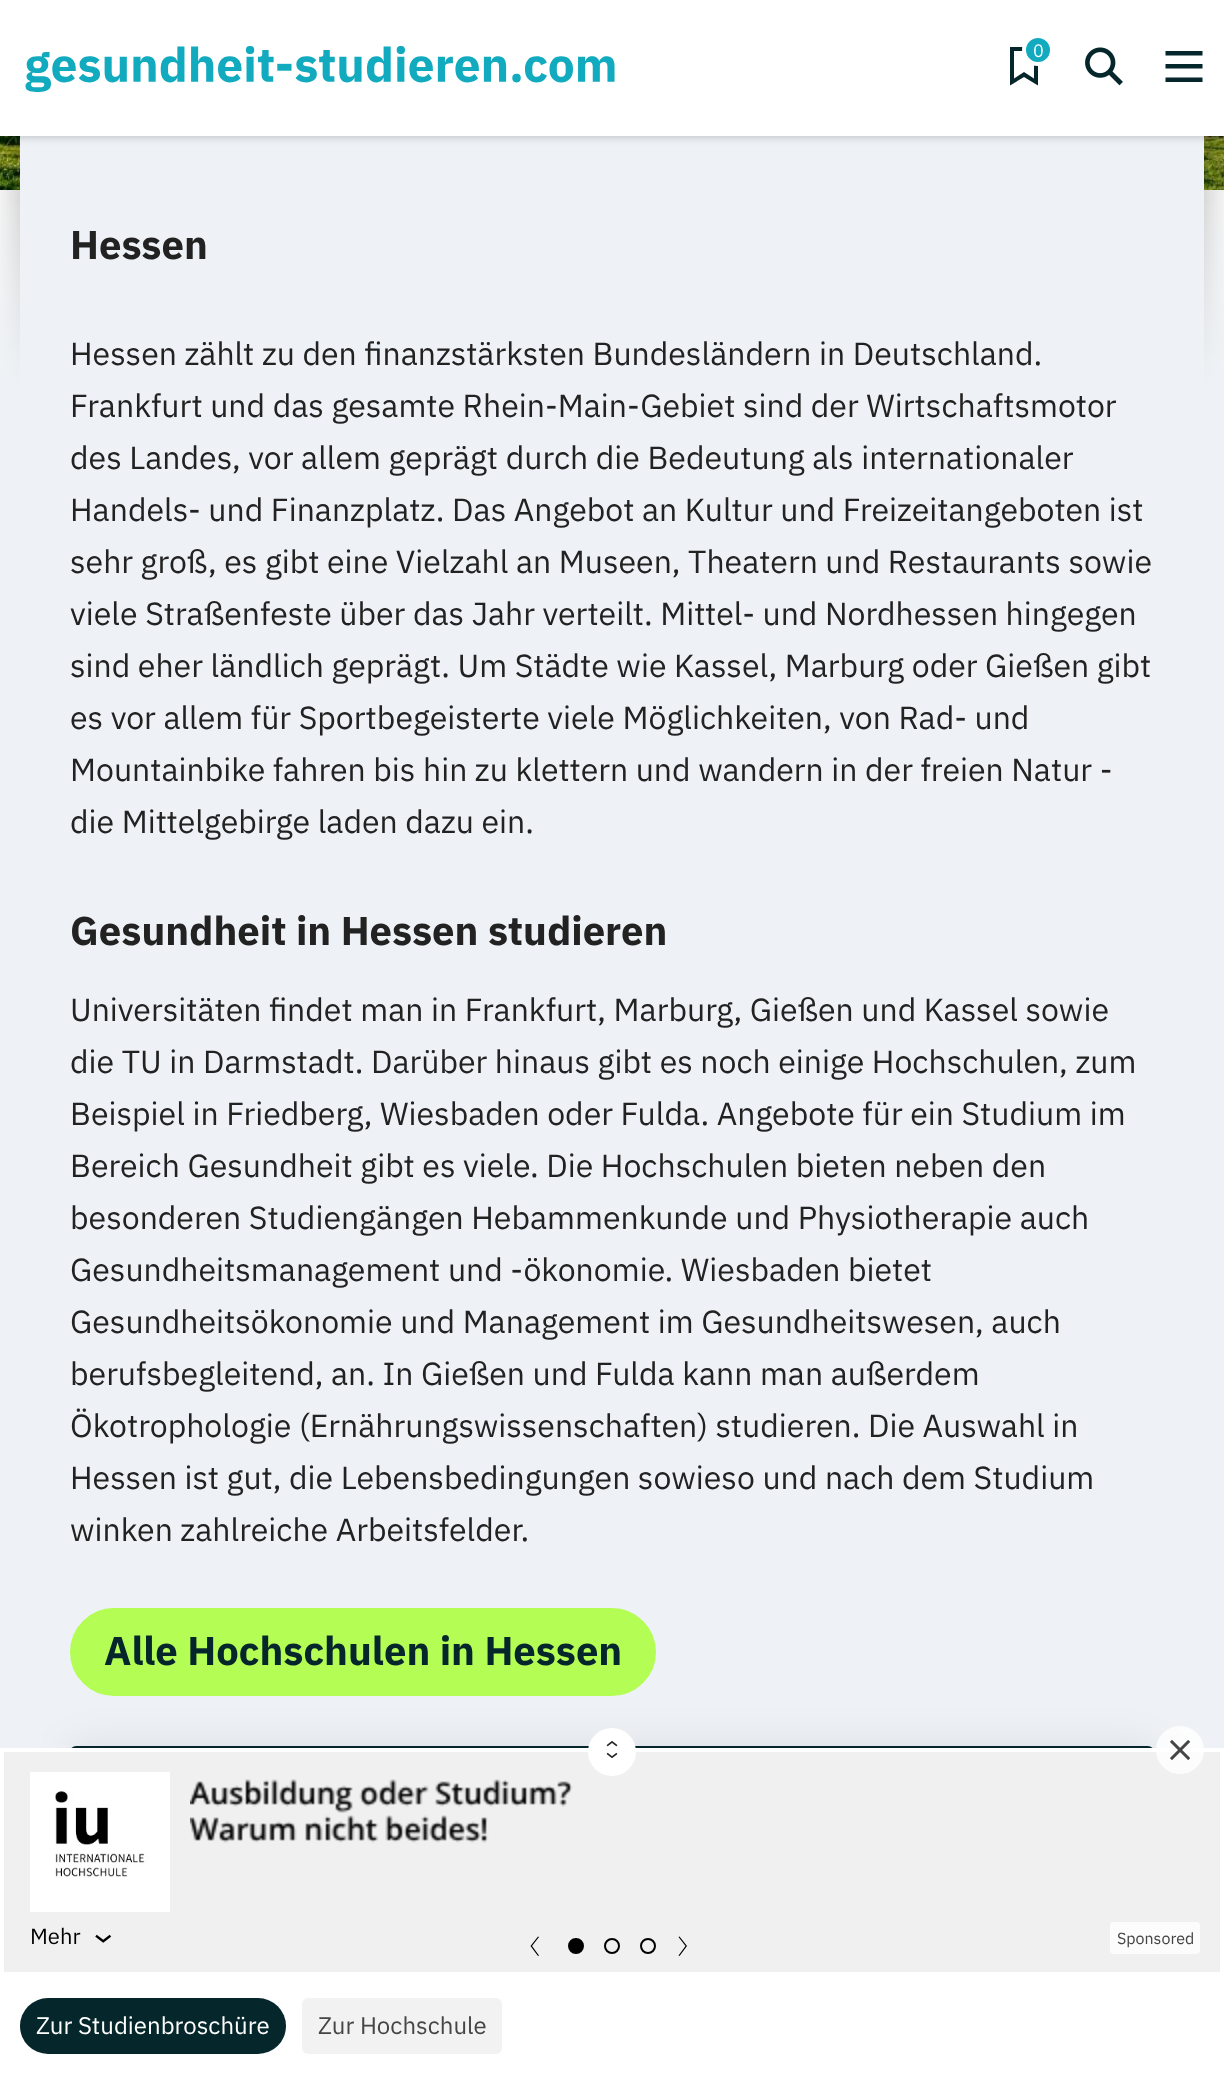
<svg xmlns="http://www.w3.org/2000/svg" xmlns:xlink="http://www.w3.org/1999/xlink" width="1224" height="2075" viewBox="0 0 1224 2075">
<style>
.cls-1{font:18px IBM Plex Sans;letter-spacing:-2px;fill:#ffffff}
.cls-2{font:bold 40px IBM Plex Sans;fill:#222222}
.cls-3{font:32px IBM Plex Sans;fill:#222222}
.cls-4{font:bold 40px IBM Plex Sans;fill:#05262b}
.cls-5{font:22px IBM Plex Sans;fill:#000000}
.cls-6{font:16px IBM Plex Sans;fill:#454545}
.cls-7{font:24px IBM Plex Sans;fill:#ffffff}
.cls-8{font:24px IBM Plex Sans;fill:#454545}
</style>
<defs>
<linearGradient id="g1" gradientUnits="userSpaceOnUse" x1="612" y1="190" x2="612" y2="390"><stop offset="0" stop-color="#eef2f6" stop-opacity="0"/><stop offset="1" stop-color="#eef2f6"/></linearGradient>
</defs>
<rect width="100%" height="100%" fill="#ffffff"/>
<image xlink:href="image2.png" x="0" y="136" width="1224" height="54"/>
<rect fill="#000000" fill-opacity="0.3" filter="blur(20px)" x="20" y="-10" width="1184" height="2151" rx="6"/>
<rect fill="#eef2f6" x="20" y="136" width="1184" height="253"/>
<rect fill="#000000" fill-opacity="0.25" filter="blur(5px)" x="0" y="0" width="1224" height="136"/>
<rect fill="#ffffff" x="0" y="0" width="1224" height="136"/>
<image xlink:href="image0.png" x="25" y="46" width="590" height="46"/>
<path fill="#05262b" d="M1010 47V85.5L1024 77L1038 85.5V47ZM1034 78.5L1024 72L1014 78.5V51H1034Z"/>
<circle fill="#12aabe" stroke="#ffffff" stroke-width="4" cx="1038" cy="50" r="14"/>
<image xlink:href="image1.png" x="1085" y="47" width="38" height="39"/>
<path fill="#05262b" d="M1165.5 77.5H1202.5V82H1165.5ZM1165.5 51V55.5H1202.5V51ZM1165.5 68.5H1202.5V64H1165.5Z"/>
<rect fill="url(#g1)" x="0" y="204" width="1224" height="186"/>
<rect fill="#eef2f6" x="0" y="390" width="1224" height="1358"/>
<rect fill="#b4fd54" stroke="#b4fd54" stroke-width="2" x="71" y="1609" width="584" height="86" rx="43"/>
<rect fill="#000000" fill-opacity="0.08" filter="blur(20px)" x="70" y="1746" width="1084" height="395" rx="6"/>
<rect fill="#05262b" x="70" y="1746" width="1084" height="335" rx="6"/>
<rect fill="#f0f0f0" x="5" y="1752" width="1214" height="220"/>
<rect fill="none" stroke="#ffffff" stroke-width="4" x="2" y="1750" width="1220" height="224"/>
<image xlink:href="image3.png" x="30" y="1772" width="140" height="140"/>
<image xlink:href="image4.png" x="190" y="1779" width="383" height="64"/>
<image xlink:href="image5.png" x="95" y="1934" width="17" height="9"/>
<circle fill="#ffffff" cx="612" cy="1752" r="24"/>
<image xlink:href="image6.png" x="606" y="1741" width="12" height="18"/>
<circle fill="#ffffff" fill-opacity="0.8" cx="1180" cy="1750" r="24"/>
<image xlink:href="image7.png" x="1170" y="1740" width="20" height="20"/>
<path fill="#000000" d="M532 1946L539 1955.5L538 1956L530.5 1946L538 1936.5L539 1937Z"/>
<circle fill="#000000" stroke="#000000" stroke-width="2" cx="576" cy="1946" r="7"/>
<circle fill="none" stroke="#000000" stroke-width="2" cx="612" cy="1946" r="7"/>
<circle fill="none" stroke="#000000" stroke-width="2" cx="648" cy="1946" r="7"/>
<path fill="#000000" d="M687 1946L679.5 1956L678.5 1955.5L685.5 1946L678.5 1937L679.5 1936.5Z"/>
<rect fill="#fcfcfc" x="1110" y="1922" width="90" height="32" rx="4"/>
<rect fill="#ffffff" x="0" y="1976" width="1224" height="99"/>
<rect fill="#05262b" x="20" y="1998" width="266" height="56" rx="28"/>
<rect fill="#f2f2f2" x="302" y="1998" width="200" height="56" rx="6"/>
<text class="cls-1" x="1033" y="57">0</text>
<text class="cls-2" x="70" y="259">Hessen</text>
<text class="cls-3"><tspan x="70" y="365">Hessen zählt zu den finanzstärksten Bundesländern in Deutschland.</tspan><tspan x="70" y="417">Frankfurt und das gesamte Rhein-Main-Gebiet sind der Wirtschaftsmotor</tspan><tspan x="70" y="469">des Landes, vor allem geprägt durch die Bedeutung als internationaler</tspan><tspan x="70" y="521">Handels- und Finanzplatz. Das Angebot an Kultur und Freizeitangeboten ist</tspan><tspan x="70" y="573">sehr groß, es gibt eine Vielzahl an Museen, Theatern und Restaurants sowie</tspan><tspan x="70" y="625">viele Straßenfeste über das Jahr verteilt. Mittel- und Nordhessen hingegen</tspan><tspan x="70" y="677">sind eher ländlich geprägt. Um Städte wie Kassel, Marburg oder Gießen gibt</tspan><tspan x="70" y="729">es vor allem für Sportbegeisterte viele Möglichkeiten, von Rad- und</tspan><tspan x="70" y="781">Mountainbike fahren bis hin zu klettern und wandern in der freien Natur -</tspan><tspan x="70" y="833">die Mittelgebirge laden dazu ein.</tspan></text>
<text class="cls-2" x="70" y="945">Gesundheit in Hessen studieren</text>
<text class="cls-3"><tspan x="70" y="1021">Universitäten findet man in Frankfurt, Marburg, Gießen und Kassel sowie</tspan><tspan x="70" y="1073">die TU in Darmstadt. Darüber hinaus gibt es noch einige Hochschulen, zum</tspan><tspan x="70" y="1125">Beispiel in Friedberg, Wiesbaden oder Fulda. Angebote für ein Studium im</tspan><tspan x="70" y="1177">Bereich Gesundheit gibt es viele. Die Hochschulen bieten neben den</tspan><tspan x="70" y="1229">besonderen Studiengängen Hebammenkunde und Physiotherapie auch</tspan><tspan x="70" y="1281">Gesundheitsmanagement und -ökonomie. Wiesbaden bietet</tspan><tspan x="70" y="1333">Gesundheitsökonomie und Management im Gesundheitswesen, auch</tspan><tspan x="70" y="1385">berufsbegleitend, an. In Gießen und Fulda kann man außerdem</tspan><tspan x="70" y="1437">Ökotrophologie (Ernährungswissenschaften) studieren. Die Auswahl in</tspan><tspan x="70" y="1489">Hessen ist gut, die Lebensbedingungen sowieso und nach dem Studium</tspan><tspan x="70" y="1541">winken zahlreiche Arbeitsfelder.</tspan></text>
<text class="cls-4" x="104" y="1665">Alle Hochschulen in Hessen</text>
<text class="cls-5" x="30" y="1944">Mehr</text>
<text class="cls-6" x="1117" y="1944">Sponsored</text>
<text class="cls-7" x="36" y="2034">Zur Studienbroschüre</text>
<text class="cls-8" x="318" y="2034">Zur Hochschule</text>
</svg>
